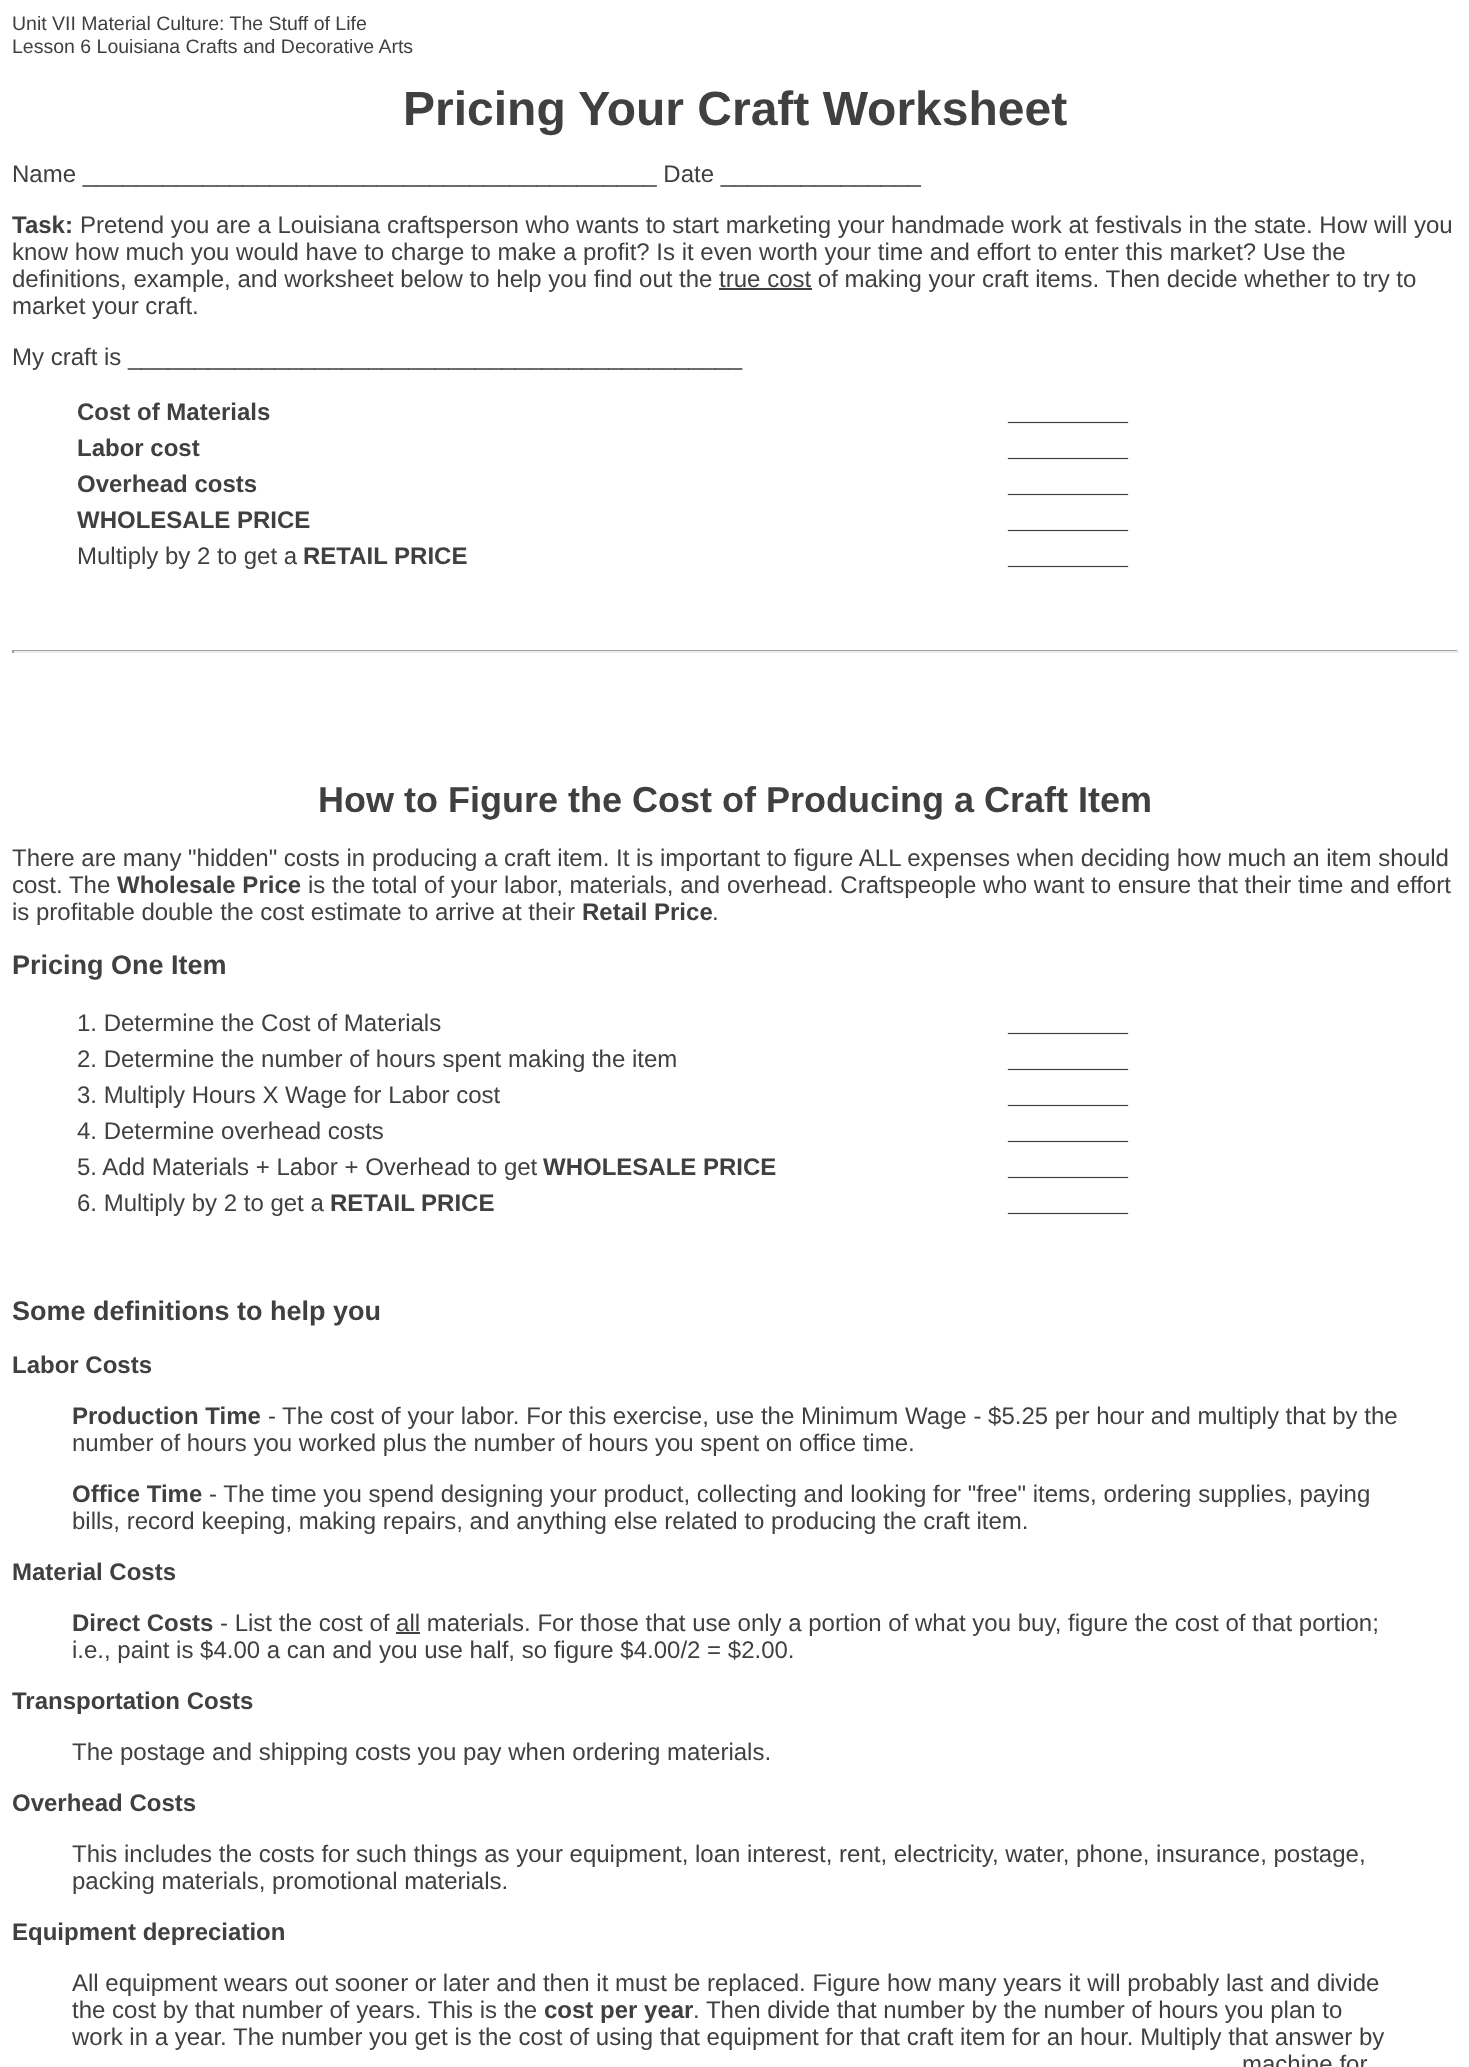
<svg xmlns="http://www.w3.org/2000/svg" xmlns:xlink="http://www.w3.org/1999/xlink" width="1469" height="2067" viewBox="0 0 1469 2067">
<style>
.cls-1{font:19.5px Liberation Sans;fill:#404040}
.cls-2{font:bold 48px Liberation Sans;fill:#404040}
.cls-3{font:24px Liberation Sans;fill:#404040}
.cls-4{font:bold 24px Liberation Sans;fill:#404040}
.cls-5{font:24px Liberation Serif;fill:#404040}
.cls-6{font:bold 36px Liberation Sans;fill:#404040}
.cls-7{font:bold 27px Liberation Sans;fill:#404040}
</style>
<rect width="100%" height="100%" fill="#ffffff"/>
<rect fill="#404040" x="719" y="288" width="93" height="2"/>
<rect fill="#9f9f9f" x="12" y="650" width="1446" height="1"/>
<rect fill="#eeeeee" x="1457" y="650" width="2" height="3"/>
<rect fill="#eeeeee" x="12" y="651" width="1446" height="2"/>
<rect fill="#9f9f9f" x="12" y="650" width="2" height="3"/>
<rect fill="#404040" x="396" y="1632" width="24" height="2"/>
<text class="cls-1"><tspan x="12" y="30">Unit VII Material Culture: The Stuff of Life</tspan><tspan x="12" y="53">Lesson 6 Louisiana Crafts and Decorative Arts</tspan></text>
<text class="cls-2" x="403" y="125">Pricing Your Craft Worksheet</text>
<text class="cls-3" x="12" y="182">Name ___________________________________________ Date _______________</text>
<text class="cls-4" x="12" y="233">Task:</text>
<text class="cls-3" x="80" y="233">Pretend you are a Louisiana craftsperson who wants to start marketing your handmade work at festivals in the state. How will you</text>
<text class="cls-3"><tspan x="12" y="260">know how much you would have to charge to make a profit? Is it even worth your time and effort to enter this market? Use the</tspan><tspan x="12" y="287">definitions, example, and worksheet below to help you find out the true cost of making your craft items. Then decide whether to try to</tspan><tspan x="12" y="314">market your craft.</tspan></text>
<text class="cls-3" x="12" y="365">My craft is ______________________________________________</text>
<text class="cls-4" x="77" y="420">Cost of Materials</text>
<text class="cls-5" x="1008" y="420">__________</text>
<text class="cls-4" x="77" y="456">Labor cost</text>
<text class="cls-5" x="1008" y="456">__________</text>
<text class="cls-4" x="77" y="492">Overhead costs</text>
<text class="cls-5" x="1008" y="492">__________</text>
<text class="cls-4" x="77" y="528">WHOLESALE PRICE</text>
<text class="cls-5" x="1008" y="528">__________</text>
<text class="cls-3" x="77" y="564">Multiply by 2 to get a</text>
<text class="cls-4" x="303" y="564">RETAIL PRICE</text>
<text class="cls-5" x="1008" y="564">__________</text>
<text class="cls-6" x="318" y="812">How to Figure the Cost of Producing a Craft Item</text>
<text class="cls-3"><tspan x="12" y="866">There are many "hidden" costs in producing a craft item. It is important to figure ALL expenses when deciding how much an item should</tspan><tspan x="12" y="893">cost. The</tspan></text>
<text class="cls-4" x="117" y="893">Wholesale Price</text>
<text class="cls-3" x="308" y="893">is the total of your labor, materials, and overhead. Craftspeople who want to ensure that their time and effort</text>
<text class="cls-3" x="12" y="920">is profitable double the cost estimate to arrive at their</text>
<text class="cls-4" x="582" y="920">Retail Price</text>
<text class="cls-3" x="712" y="920">.</text>
<text class="cls-7" x="12" y="974">Pricing One Item</text>
<text class="cls-3" x="77" y="1031">1. Determine the Cost of Materials</text>
<text class="cls-5" x="1008" y="1031">__________</text>
<text class="cls-3" x="77" y="1067">2. Determine the number of hours spent making the item</text>
<text class="cls-5" x="1008" y="1067">__________</text>
<text class="cls-3" x="77" y="1103">3. Multiply Hours X Wage for Labor cost</text>
<text class="cls-5" x="1008" y="1103">__________</text>
<text class="cls-3" x="77" y="1139">4. Determine overhead costs</text>
<text class="cls-5" x="1008" y="1139">__________</text>
<text class="cls-3" x="77" y="1175">5. Add Materials + Labor + Overhead to get</text>
<text class="cls-4" x="543" y="1175">WHOLESALE PRICE</text>
<text class="cls-5" x="1008" y="1175">__________</text>
<text class="cls-3" x="77" y="1211">6. Multiply by 2 to get a</text>
<text class="cls-4" x="330" y="1211">RETAIL PRICE</text>
<text class="cls-5" x="1008" y="1211">__________</text>
<text class="cls-7" x="12" y="1320">Some definitions to help you</text>
<text class="cls-4" x="12" y="1373">Labor Costs</text>
<text class="cls-4" x="72" y="1424">Production Time</text>
<text class="cls-3" x="268" y="1424">-</text>
<text class="cls-3" x="282" y="1424">The cost of your labor. For this exercise, use the Minimum Wage - $5.25 per hour and multiply that by the</text>
<text class="cls-3" x="72" y="1451">number of hours you worked plus the number of hours you spent on office time.</text>
<text class="cls-4" x="72" y="1502">Office Time</text>
<text class="cls-3" x="209" y="1502">- The time you spend designing your product, collecting and looking for "free" items, ordering supplies, paying</text>
<text class="cls-3" x="72" y="1529">bills, record keeping, making repairs, and anything else related to producing the craft item.</text>
<text class="cls-4" x="12" y="1580">Material Costs</text>
<text class="cls-4" x="72" y="1631">Direct Costs</text>
<text class="cls-3" x="220" y="1631">- List the cost of all materials. For those that use only a portion of what you buy, figure the cost of that portion;</text>
<text class="cls-3" x="72" y="1658">i.e., paint is $4.00 a can and you use half, so figure $4.00/2 = $2.00.</text>
<text class="cls-4" x="12" y="1709">Transportation Costs</text>
<text class="cls-3" x="72" y="1760">The postage and shipping costs you pay when ordering materials.</text>
<text class="cls-4" x="12" y="1811">Overhead Costs</text>
<text class="cls-3"><tspan x="72" y="1862">This includes the costs for such things as your equipment, loan interest, rent, electricity, water, phone, insurance, postage,</tspan><tspan x="72" y="1889">packing materials, promotional materials.</tspan></text>
<text class="cls-4" x="12" y="1940">Equipment depreciation</text>
<text class="cls-3"><tspan x="72" y="1991">All equipment wears out sooner or later and then it must be replaced. Figure how many years it will probably last and divide</tspan><tspan x="72" y="2018">the cost by that number of years. This is the</tspan></text>
<text class="cls-4" x="544" y="2018">cost per year</text>
<text class="cls-3" x="693" y="2018">. Then divide that number by the number of hours you plan to</text>
<text class="cls-3" x="72" y="2045">work in a year. The number you get is the cost of using that equipment for that craft item for an hour. Multiply that answer by</text>
<text class="cls-3" x="1242" y="2072">machine for</text>
</svg>
